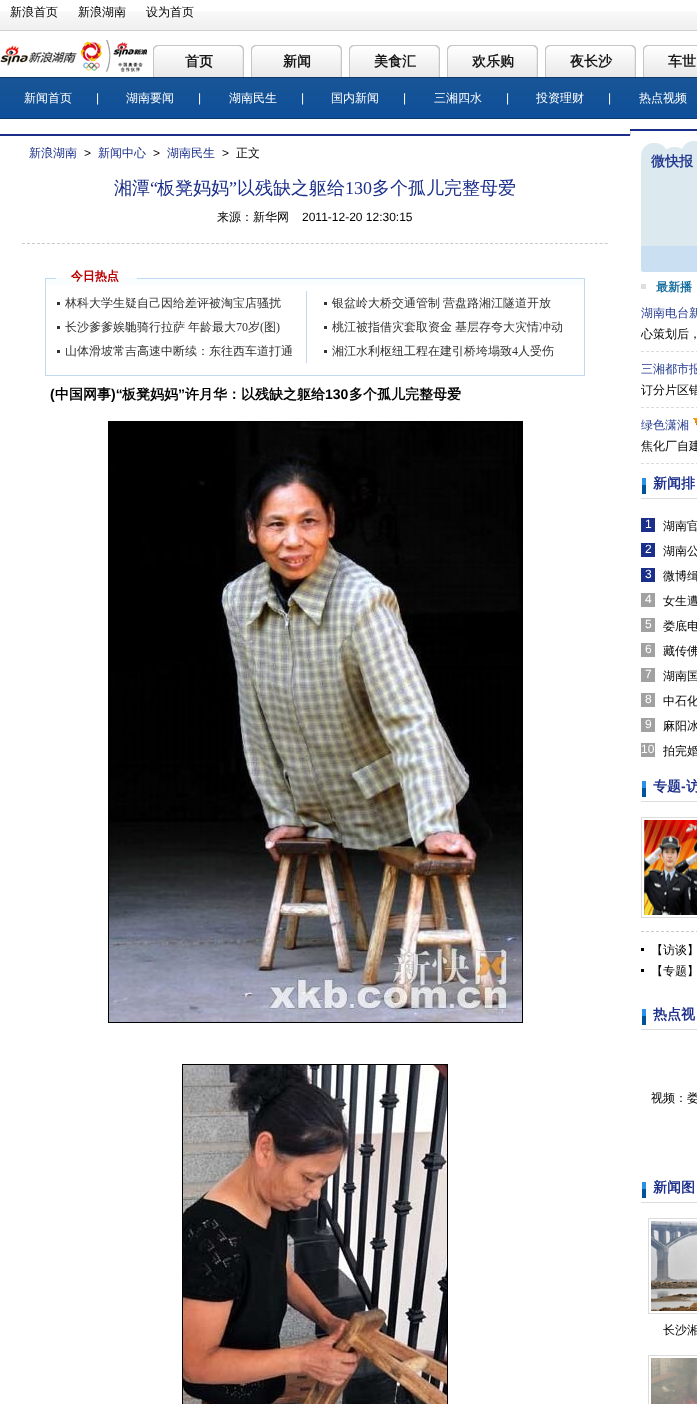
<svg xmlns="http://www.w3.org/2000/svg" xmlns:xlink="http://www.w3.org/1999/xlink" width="697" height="1404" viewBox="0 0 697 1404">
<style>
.cls-1{font:500 12px WenQuanYi Zen Hei;fill:#000000}
.cls-2{font:bold 14px WenQuanYi Zen Hei;fill:#171717}
.cls-3{font:500 12px WenQuanYi Zen Hei;fill:#ffffff}
.cls-4{font:12px Liberation Sans;fill:#ffffff}
.cls-5{font:500 12px WenQuanYi Zen Hei;fill:#1b2f8a}
.cls-6{font:12px Liberation Sans;fill:#000000}
.cls-7{font:500 18px WenQuanYi Zen Hei;fill:#1b2f8a}
.cls-8{font:18px Liberation Serif;fill:#1b2f8a}
.cls-9{font:bold 14px Liberation Sans;fill:#000000}
.cls-10{font:bold 14px WenQuanYi Zen Hei;fill:#000000}
.cls-11{font:bold 14px WenQuanYi Zen Hei;fill:#263c91}
.cls-12{font:bold 12px WenQuanYi Zen Hei;fill:#176e9f}
.cls-13{font:500 12px WenQuanYi Zen Hei;fill:#263c91}
.cls-14{font:bold 14px WenQuanYi Zen Hei;fill:#1b2f8a}
.cls-15{font:bold 14px Liberation Sans;fill:#1b2f8a}
</style>
<rect width="100%" height="100%" fill="#ffffff"/>
<image xlink:href="image0.png" x="0" y="11" width="697" height="20"/>
<image xlink:href="image1.png" x="0" y="40" width="147" height="32"/>
<image xlink:href="image2.png" x="153" y="45" width="91" height="32"/>
<image xlink:href="image2.png" x="251" y="45" width="91" height="32"/>
<image xlink:href="image2.png" x="349" y="45" width="91" height="32"/>
<image xlink:href="image2.png" x="447" y="45" width="91" height="32"/>
<image xlink:href="image2.png" x="545" y="45" width="91" height="32"/>
<image xlink:href="image3.png" x="643" y="45" width="54" height="32"/>
<image xlink:href="image4.png" x="0" y="77" width="697" height="42"/>
<image xlink:href="image5.png" x="0" y="129" width="697" height="7"/>
<path fill="none" stroke="#cacaca" stroke-dasharray="3 1.98" d="M22 243.5H608"/>
<image xlink:href="image6.png" x="45" y="269" width="540" height="107"/>
<rect fill="none" stroke="#000000" x="108.5" y="421.5" width="414" height="601"/>
<image xlink:href="image7.png" x="109" y="422" width="413" height="600"/>
<rect fill="none" stroke="#000000" x="182.5" y="1064.5" width="265" height="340"/>
<image xlink:href="image8.png" x="183" y="1065" width="264" height="339"/>
<image xlink:href="image9.png" x="641" y="141" width="56" height="131"/>
<rect fill="#dededf" x="641" y="284" width="5" height="5"/>
<path fill="none" stroke="#dcdcdc" stroke-dasharray="3 2" d="M641 351.5H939"/>
<path fill="none" stroke="#dcdcdc" stroke-dasharray="3 2" d="M641 407.5H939"/>
<path fill="none" stroke="#dcdcdc" stroke-dasharray="3 2" d="M641 463.5H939"/>
<image xlink:href="image10.png" x="693" y="418" width="4" height="7"/>
<image xlink:href="image11.png" x="642" y="478" width="4" height="16"/>
<rect fill="#dcdcdc" x="641" y="498" width="56" height="1"/>
<rect fill="#1b2f8a" x="641" y="518" width="14" height="14"/>
<rect fill="#1b2f8a" x="641" y="543" width="14" height="14"/>
<rect fill="#1b2f8a" x="641" y="568" width="14" height="14"/>
<rect fill="#a1a1a1" x="641" y="593" width="14" height="14"/>
<rect fill="#a1a1a1" x="641" y="618" width="14" height="14"/>
<rect fill="#a1a1a1" x="641" y="643" width="14" height="14"/>
<rect fill="#a1a1a1" x="641" y="668" width="14" height="14"/>
<rect fill="#a1a1a1" x="641" y="693" width="14" height="14"/>
<rect fill="#a1a1a1" x="641" y="718" width="14" height="14"/>
<rect fill="#a1a1a1" x="641" y="743" width="14" height="14"/>
<image xlink:href="image11.png" x="642" y="781" width="4" height="16"/>
<rect fill="#dcdcdc" x="641" y="801" width="56" height="1"/>
<rect fill="none" stroke="#dcdcdc" x="641.5" y="817.5" width="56" height="100"/>
<image xlink:href="image12.png" x="644" y="820" width="53" height="95"/>
<path fill="none" stroke="#cacaca" stroke-dasharray="3 2" d="M641 931.5H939"/>
<rect fill="#000000" x="641" y="948" width="3" height="3"/>
<rect fill="#000000" x="641" y="969" width="3" height="3"/>
<image xlink:href="image11.png" x="642" y="1009" width="4" height="16"/>
<rect fill="#dcdcdc" x="641" y="1029" width="56" height="1"/>
<image xlink:href="image11.png" x="642" y="1182" width="4" height="16"/>
<rect fill="#dcdcdc" x="641" y="1202" width="56" height="1"/>
<rect fill="none" stroke="#dcdcdc" x="648.5" y="1218.5" width="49" height="95"/>
<image xlink:href="image13.png" x="651" y="1221" width="46" height="90"/>
<rect fill="none" stroke="#dcdcdc" x="648.5" y="1355.5" width="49" height="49"/>
<image xlink:href="image14.png" x="651" y="1358" width="46" height="46"/>
<text class="cls-1" x="10" y="16">新浪首页</text>
<text class="cls-1" x="78" y="16">新浪湖南</text>
<text class="cls-1" x="146" y="16">设为首页</text>
<text class="cls-2" x="185" y="66">首页</text>
<text class="cls-2" x="283" y="66">新闻</text>
<text class="cls-2" x="374" y="66">美食汇</text>
<text class="cls-2" x="472" y="66">欢乐购</text>
<text class="cls-2" x="570" y="66">夜长沙</text>
<text class="cls-2" x="668" y="66">车世</text>
<text class="cls-3" x="24" y="102">新闻首页</text>
<text class="cls-4" x="96" y="102">|</text>
<text class="cls-3" x="126" y="102">湖南要闻</text>
<text class="cls-4" x="198" y="102">|</text>
<text class="cls-3" x="229" y="102">湖南民生</text>
<text class="cls-4" x="301" y="102">|</text>
<text class="cls-3" x="331" y="102">国内新闻</text>
<text class="cls-4" x="403" y="102">|</text>
<text class="cls-3" x="434" y="102">三湘四水</text>
<text class="cls-4" x="506" y="102">|</text>
<text class="cls-3" x="536" y="102">投资理财</text>
<text class="cls-4" x="608" y="102">|</text>
<text class="cls-3" x="639" y="102">热点视频</text>
<text class="cls-5" x="29" y="157">新浪湖南</text>
<text class="cls-6" x="84" y="157">&gt;</text>
<text class="cls-5" x="98" y="157">新闻中心</text>
<text class="cls-6" x="153" y="157">&gt;</text>
<text class="cls-5" x="167" y="157">湖南民生</text>
<text class="cls-6" x="222" y="157">&gt;</text>
<text class="cls-1" x="236" y="157">正文</text>
<text class="cls-7" x="114" y="194">湘潭</text>
<text class="cls-8" x="150" y="194">“</text>
<text class="cls-7" x="157" y="194">板凳妈妈</text>
<text class="cls-8" x="229" y="194">”</text>
<text class="cls-7" x="237" y="194">以残缺之躯给</text>
<text class="cls-8" x="345" y="194">130</text>
<text class="cls-7" x="372" y="194">多个孤儿完整母爱</text>
<text class="cls-1" x="217" y="221">来源：新华网</text>
<text class="cls-6" x="302" y="221">2011-12-20 12:30:15</text>
<text class="cls-9" x="50" y="399">(</text>
<text class="cls-10" x="55" y="399">中国网事</text>
<text class="cls-9" x="111" y="399">)“</text>
<text class="cls-10" x="122" y="399">板凳妈妈</text>
<text class="cls-9" x="178" y="399">”</text>
<text class="cls-10" x="185" y="399">许月华：以残缺之躯给</text>
<text class="cls-9" x="325" y="399">130</text>
<text class="cls-10" x="349" y="399">多个孤儿完整母爱</text>
<text class="cls-11" x="651" y="166">微快报</text>
<text class="cls-12" x="656" y="291">最新播</text>
<text class="cls-13" x="641" y="317">湖南电台新</text>
<text class="cls-1" x="641" y="338">心策划后，</text>
<text class="cls-13" x="641" y="373">三湘都市报</text>
<text class="cls-1" x="641" y="394">订分片区错</text>
<text class="cls-13" x="641" y="429">绿色潇湘</text>
<text class="cls-1" x="641" y="450">焦化厂自建</text>
<text class="cls-14" x="653" y="488">新闻排</text>
<text class="cls-4" x="645" y="528">1</text>
<text class="cls-1" x="663" y="530">湖南官</text>
<text class="cls-4" x="645" y="553">2</text>
<text class="cls-1" x="663" y="555">湖南公</text>
<text class="cls-4" x="645" y="578">3</text>
<text class="cls-1" x="663" y="580">微博缉</text>
<text class="cls-4" x="645" y="603">4</text>
<text class="cls-1" x="663" y="605">女生遭</text>
<text class="cls-4" x="645" y="628">5</text>
<text class="cls-1" x="663" y="630">娄底电</text>
<text class="cls-4" x="645" y="653">6</text>
<text class="cls-1" x="663" y="655">藏传佛</text>
<text class="cls-4" x="645" y="678">7</text>
<text class="cls-1" x="663" y="680">湖南国</text>
<text class="cls-4" x="645" y="703">8</text>
<text class="cls-1" x="663" y="705">中石化</text>
<text class="cls-4" x="645" y="728">9</text>
<text class="cls-1" x="663" y="730">麻阳冰</text>
<text class="cls-4" x="641" y="753">10</text>
<text class="cls-1" x="663" y="755">拍完婚</text>
<text class="cls-14" x="653" y="791">专题</text>
<text class="cls-15" x="681" y="791">-</text>
<text class="cls-14" x="686" y="791">访</text>
<text class="cls-1"><tspan x="651" y="954">【访谈】</tspan><tspan x="651" y="975">【专题】</tspan></text>
<text class="cls-14" x="653" y="1019">热点视</text>
<text class="cls-1" x="651" y="1102">视频：娄</text>
<text class="cls-14" x="653" y="1192">新闻图</text>
<text class="cls-1" x="663" y="1334">长沙湘</text>
</svg>
